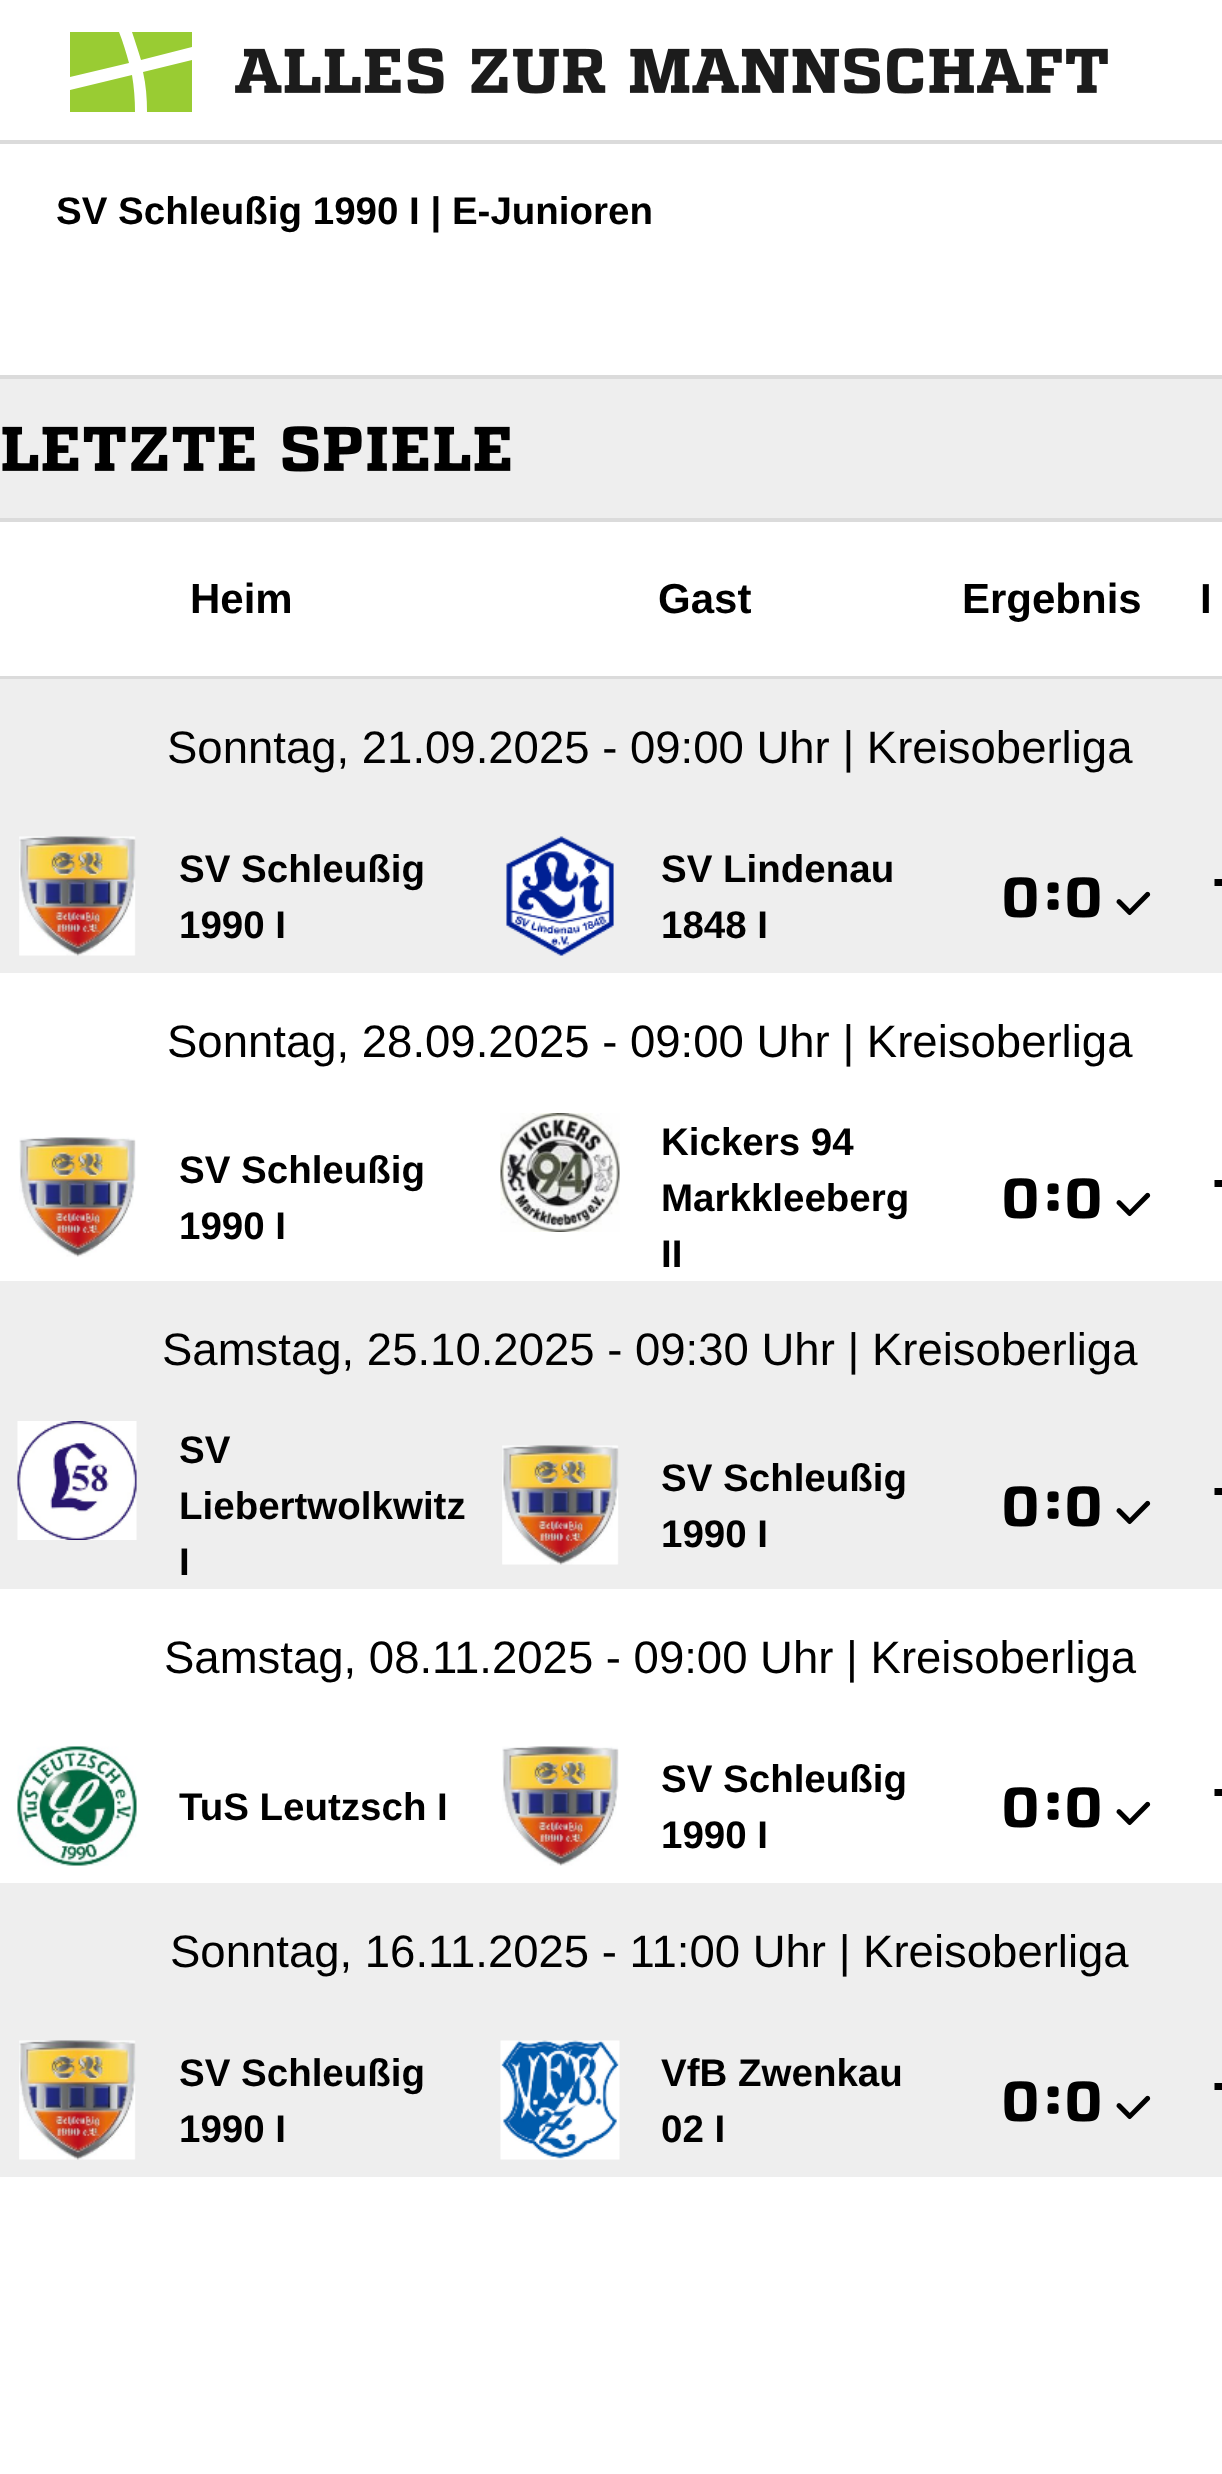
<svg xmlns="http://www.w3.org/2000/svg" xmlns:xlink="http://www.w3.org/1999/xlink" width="1222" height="2474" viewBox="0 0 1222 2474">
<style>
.cls-1{font:bold 38.5px Liberation Sans;fill:#000000}
.cls-2{font:bold 42px Liberation Sans;fill:#000000}
.cls-3{font:45.5px Liberation Sans;fill:#000000}
</style>
<rect width="100%" height="100%" fill="#ffffff"/>
<rect fill="#dbdbdb" x="0" y="140" width="1222" height="4"/>
<path fill="#99cc33" fill-rule="evenodd" d="M132 75C134 87 135 99 135 112H70V90ZM70 77V32H119C123 42 126 52 129 63ZM147 112C147 98 146 85 143 72L192 60V112ZM192 32V47L141 60C138 50 135 41 132 32Z"/>
<image xlink:href="image0.png" x="235" y="48" width="873" height="46"/>
<rect fill="#eeeeee" x="0" y="379" width="1222" height="139"/>
<rect fill="#dbdbdb" x="0" y="375" width="1222" height="4"/>
<rect fill="#dbdbdb" x="0" y="518" width="1222" height="4"/>
<image xlink:href="image1.png" x="2" y="426" width="509" height="46"/>
<rect fill="#dbdbdb" x="0" y="676" width="1222" height="3"/>
<rect fill="#eeeeee" x="0" y="679" width="1222" height="140"/>
<rect fill="#eeeeee" x="0" y="819" width="1222" height="154"/>
<image xlink:href="image2.png" x="19" y="836" width="117" height="120"/>
<image xlink:href="image3.png" x="506" y="836" width="108" height="120"/>
<image xlink:href="image4.png" x="1004" y="877" width="33" height="41"/>
<image xlink:href="image5.png" x="1047" y="882" width="12" height="28"/>
<image xlink:href="image4.png" x="1067" y="877" width="33" height="41"/>
<image xlink:href="image6.png" x="1116" y="891" width="35" height="25"/>
<path fill="#000000" d="M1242 913.5V886H1214.5V879H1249V913.5Z"/>
<image xlink:href="image7.png" x="19" y="1137" width="117" height="120"/>
<image xlink:href="image8.png" x="500" y="1113" width="120" height="119"/>
<image xlink:href="image9.png" x="1004" y="1178" width="33" height="41"/>
<image xlink:href="image10.png" x="1047" y="1183" width="12" height="28"/>
<image xlink:href="image9.png" x="1067" y="1178" width="33" height="41"/>
<image xlink:href="image11.png" x="1116" y="1192" width="35" height="25"/>
<path fill="#000000" d="M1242 1214.5V1187H1214.5V1180H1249V1214.5Z"/>
<rect fill="#eeeeee" x="0" y="1281" width="1222" height="140"/>
<rect fill="#eeeeee" x="0" y="1421" width="1222" height="168"/>
<image xlink:href="image12.png" x="17" y="1421" width="120" height="119"/>
<image xlink:href="image2.png" x="502" y="1445" width="117" height="120"/>
<image xlink:href="image4.png" x="1004" y="1486" width="33" height="41"/>
<image xlink:href="image5.png" x="1047" y="1491" width="12" height="28"/>
<image xlink:href="image4.png" x="1067" y="1486" width="33" height="41"/>
<image xlink:href="image6.png" x="1116" y="1500" width="35" height="25"/>
<path fill="#000000" d="M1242 1522.5V1495H1214.5V1488H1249V1522.5Z"/>
<image xlink:href="image13.png" x="17" y="1746" width="120" height="120"/>
<image xlink:href="image7.png" x="502" y="1746" width="117" height="120"/>
<image xlink:href="image9.png" x="1004" y="1787" width="33" height="41"/>
<image xlink:href="image10.png" x="1047" y="1792" width="12" height="28"/>
<image xlink:href="image9.png" x="1067" y="1787" width="33" height="41"/>
<image xlink:href="image11.png" x="1116" y="1801" width="35" height="25"/>
<path fill="#000000" d="M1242 1823.5V1796H1214.5V1789H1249V1823.5Z"/>
<rect fill="#eeeeee" x="0" y="1883" width="1222" height="140"/>
<rect fill="#eeeeee" x="0" y="2023" width="1222" height="154"/>
<image xlink:href="image2.png" x="19" y="2040" width="117" height="120"/>
<image xlink:href="image14.png" x="500" y="2040" width="120" height="120"/>
<image xlink:href="image4.png" x="1004" y="2081" width="33" height="41"/>
<image xlink:href="image5.png" x="1047" y="2086" width="12" height="28"/>
<image xlink:href="image4.png" x="1067" y="2081" width="33" height="41"/>
<image xlink:href="image6.png" x="1116" y="2095" width="35" height="25"/>
<path fill="#000000" d="M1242 2117.5V2090H1214.5V2083H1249V2117.5Z"/>
<text class="cls-1" x="56" y="224">SV Schleußig 1990 I | E-Junioren</text>
<text class="cls-2" x="190" y="613">Heim</text>
<text class="cls-2" x="658" y="613">Gast</text>
<text class="cls-2" x="962" y="613">Ergebnis</text>
<text class="cls-2" x="1200" y="613">I</text>
<text class="cls-3" x="167" y="763">Sonntag, 21.09.2025 - 09:00 Uhr | Kreisoberliga</text>
<text class="cls-1"><tspan x="179" y="882">SV Schleußig</tspan><tspan x="179" y="938">1990 I</tspan></text>
<text class="cls-1"><tspan x="661" y="882">SV Lindenau</tspan><tspan x="661" y="938">1848 I</tspan></text>
<text class="cls-3" x="167" y="1057">Sonntag, 28.09.2025 - 09:00 Uhr | Kreisoberliga</text>
<text class="cls-1"><tspan x="179" y="1183">SV Schleußig</tspan><tspan x="179" y="1239">1990 I</tspan></text>
<text class="cls-1"><tspan x="661" y="1155">Kickers 94</tspan><tspan x="661" y="1211">Markkleeberg</tspan><tspan x="661" y="1267">II</tspan></text>
<text class="cls-3" x="162" y="1365">Samstag, 25.10.2025 - 09:30 Uhr | Kreisoberliga</text>
<text class="cls-1"><tspan x="179" y="1463">SV</tspan><tspan x="179" y="1519">Liebertwolkwitz</tspan><tspan x="179" y="1575">I</tspan></text>
<text class="cls-1"><tspan x="661" y="1491">SV Schleußig</tspan><tspan x="661" y="1547">1990 I</tspan></text>
<text class="cls-3" x="164" y="1673">Samstag, 08.11.2025 - 09:00 Uhr | Kreisoberliga</text>
<text class="cls-1" x="179" y="1820">TuS Leutzsch I</text>
<text class="cls-1"><tspan x="661" y="1792">SV Schleußig</tspan><tspan x="661" y="1848">1990 I</tspan></text>
<text class="cls-3" x="170" y="1967">Sonntag, 16.11.2025 - 11:00 Uhr | Kreisoberliga</text>
<text class="cls-1"><tspan x="179" y="2086">SV Schleußig</tspan><tspan x="179" y="2142">1990 I</tspan></text>
<text class="cls-1"><tspan x="661" y="2086">VfB Zwenkau</tspan><tspan x="661" y="2142">02 I</tspan></text>
</svg>
